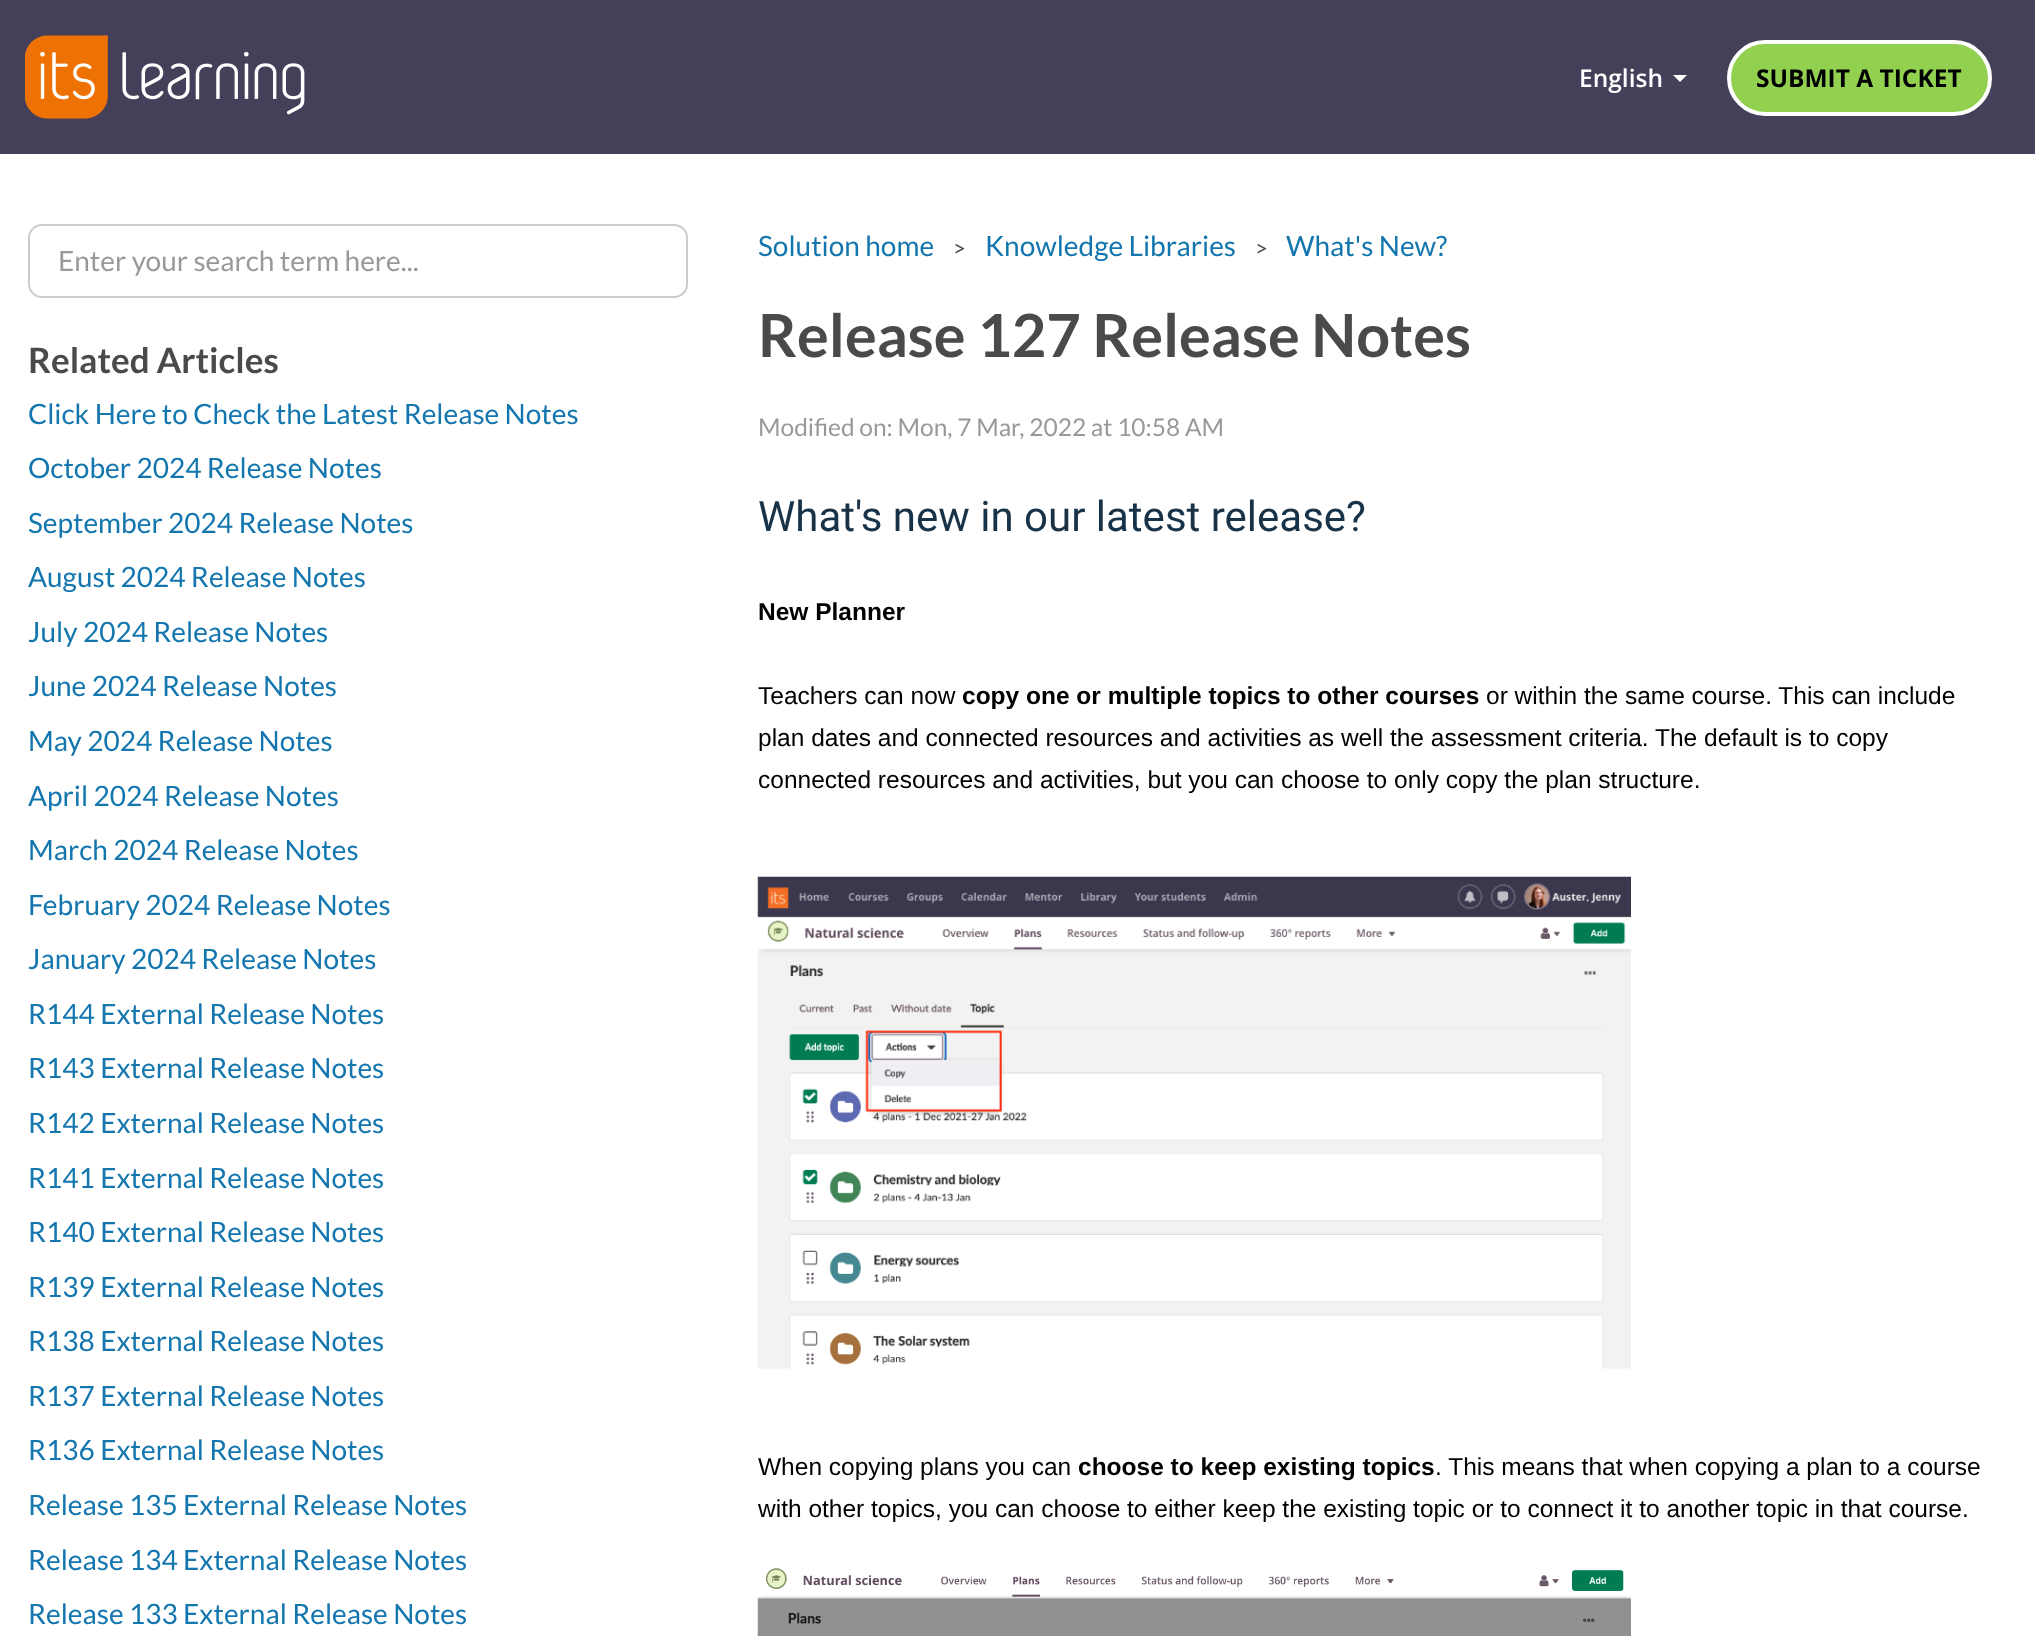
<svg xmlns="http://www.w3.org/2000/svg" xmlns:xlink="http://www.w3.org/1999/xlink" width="2035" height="1636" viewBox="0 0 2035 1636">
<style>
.cls-1{font:600 24.5px Open Sans;fill:#ffffff}
.cls-2{font:bold 24.5px Open Sans;fill:#000000}
.cls-3{font:28px Lato;fill:#999999}
.cls-4{font:bold 35px Lato;fill:#4a4a4b}
.cls-5{font:28px Lato;fill:#1376ae}
.cls-6{font:22px Lato;fill:#4a4a4b}
.cls-7{font:bold 59.5px Lato;fill:#4a4a4b}
.cls-8{font:24.5px Lato;fill:#999999}
.cls-9{font:42px Roboto;fill:#183247}
.cls-10{font:bold 24.5px Liberation Sans;fill:#000000}
.cls-11{font:24.5px Liberation Sans;fill:#000000}
</style>
<rect width="100%" height="100%" fill="#ffffff"/>
<rect fill="#444059" x="0" y="0" width="2035" height="154"/>
<image xlink:href="image0.png" x="25" y="35" width="280" height="84"/>
<path fill="#ffffff" d="M1673 75H1687L1680 82Z"/>
<rect fill="#92d050" stroke="#ffffff" stroke-width="4" x="1729" y="42" width="261" height="72" rx="36"/>
<rect fill="none" stroke="#cccccc" stroke-width="2" x="29" y="225" width="658" height="72" rx="13"/>
<image xlink:href="image1.png" x="757" y="876" width="874" height="493"/>
<image xlink:href="image2.png" x="757" y="1568" width="874" height="68"/>
<text class="cls-1" x="1579" y="87">English</text>
<text class="cls-2" x="1756" y="87">SUBMIT A TICKET</text>
<text class="cls-3" x="58" y="271">Enter your search term here...</text>
<text class="cls-4" x="28" y="373">Related Articles</text>
<text class="cls-5"><tspan x="28" y="424">Click Here to Check the Latest Release Notes</tspan><tspan x="28" y="478">October 2024 Release Notes</tspan><tspan x="28" y="533">September 2024 Release Notes</tspan><tspan x="28" y="587">August 2024 Release Notes</tspan><tspan x="28" y="642">July 2024 Release Notes</tspan><tspan x="28" y="696">June 2024 Release Notes</tspan><tspan x="28" y="751">May 2024 Release Notes</tspan><tspan x="28" y="806">April 2024 Release Notes</tspan><tspan x="28" y="860">March 2024 Release Notes</tspan><tspan x="28" y="915">February 2024 Release Notes</tspan><tspan x="28" y="969">January 2024 Release Notes</tspan><tspan x="28" y="1024">R144 External Release Notes</tspan><tspan x="28" y="1078">R143 External Release Notes</tspan><tspan x="28" y="1133">R142 External Release Notes</tspan><tspan x="28" y="1188">R141 External Release Notes</tspan><tspan x="28" y="1242">R140 External Release Notes</tspan><tspan x="28" y="1297">R139 External Release Notes</tspan><tspan x="28" y="1351">R138 External Release Notes</tspan><tspan x="28" y="1406">R137 External Release Notes</tspan><tspan x="28" y="1460">R136 External Release Notes</tspan><tspan x="28" y="1515">Release 135 External Release Notes</tspan><tspan x="28" y="1570">Release 134 External Release Notes</tspan><tspan x="28" y="1624">Release 133 External Release Notes</tspan></text>
<text class="cls-5" x="758" y="256">Solution home</text>
<text class="cls-6" x="953" y="256">&gt;</text>
<text class="cls-5" x="985" y="256">Knowledge Libraries</text>
<text class="cls-6" x="1255" y="256">&gt;</text>
<text class="cls-5" x="1286" y="256">What's New?</text>
<text class="cls-7" x="758" y="357">Release 127 Release Notes</text>
<text class="cls-8" x="758" y="436">Modified on: Mon, 7 Mar, 2022 at 10:58 AM</text>
<text class="cls-9" x="758" y="531">What's new in our latest release?</text>
<text class="cls-10" x="758" y="620">New Planner</text>
<text class="cls-11" x="758" y="704">Teachers can now</text>
<text class="cls-10" x="962" y="704">copy one or multiple topics to other courses</text>
<text class="cls-11" x="1486" y="704">or within the same course. This can include</text>
<text class="cls-11"><tspan x="758" y="746">plan dates and connected resources and activities as well the assessment criteria. The default is to copy</tspan><tspan x="758" y="788">connected resources and activities, but you can choose to only copy the plan structure.</tspan></text>
<text class="cls-11" x="758" y="1475">When copying plans you can</text>
<text class="cls-10" x="1078" y="1475">choose to keep existing topics</text>
<text class="cls-11" x="1435" y="1475">. This means that when copying a plan to a course</text>
<text class="cls-11" x="758" y="1517">with other topics, you can choose to either keep the existing topic or to connect it to another topic in that course.</text>
</svg>
